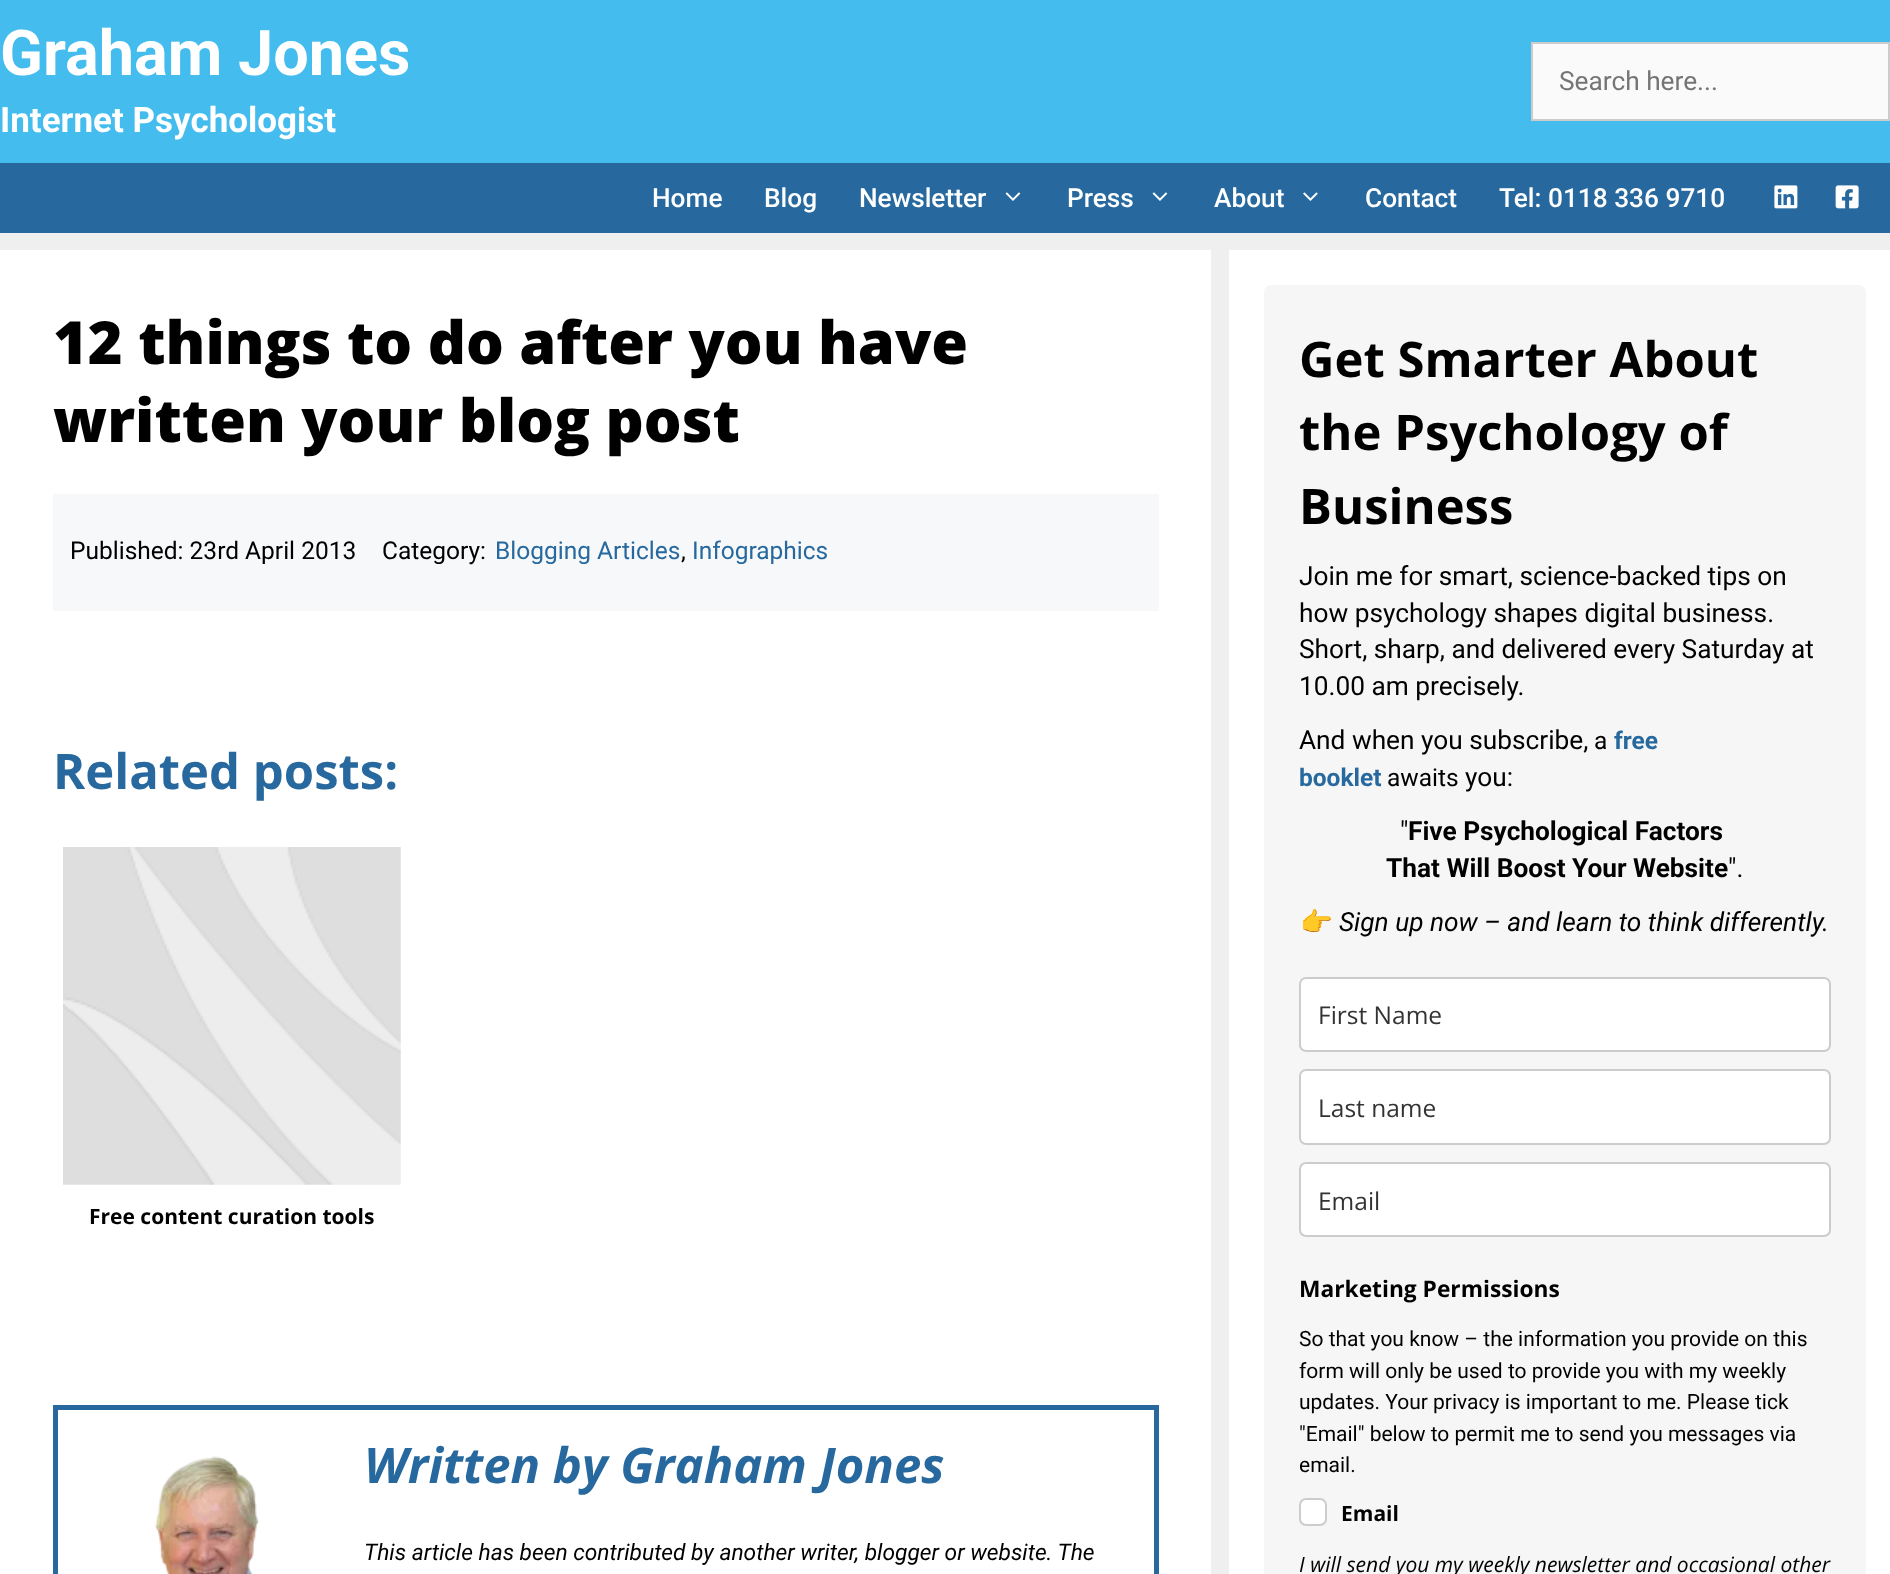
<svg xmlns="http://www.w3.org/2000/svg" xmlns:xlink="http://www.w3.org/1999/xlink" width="1890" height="1574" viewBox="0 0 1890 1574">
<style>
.cls-1{font:bold 63px Roboto;fill:#ffffff}
.cls-2{font:bold 35px Roboto;fill:#ffffff}
.cls-3{font:26.25px Roboto;fill:#757575}
.cls-4{font:500 26.25px Roboto;fill:#ffffff}
.cls-5{font:800 59.5px Open Sans;fill:#000000}
.cls-6{font:24.5px Roboto;fill:#000000}
.cls-7{font:24.5px Roboto;fill:#27699e}
.cls-8{font:bold 49px Open Sans;fill:#27699e}
.cls-9{font:bold 21px Open Sans;fill:#000000}
.cls-10{font:italic bold 49px Open Sans;fill:#27699e}
.cls-11{font:italic 22.75px Roboto;fill:#000000}
.cls-12{font:bold 49px Open Sans;fill:#000000}
.cls-13{font:26.25px Roboto;fill:#000000}
.cls-14{font:bold 24.5px Roboto;fill:#27699e}
.cls-15{font:bold 26.25px Roboto;fill:#000000}
.cls-16{font:26.25px Noto Color Emoji;fill:#000000}
.cls-17{font:italic 26.25px Roboto;fill:#000000}
.cls-18{font:24.5px Open Sans;fill:#333333}
.cls-19{font:bold 22.75px Open Sans;fill:#000000}
.cls-20{font:21px Roboto;fill:#000000}
.cls-21{font:italic 21px Open Sans;fill:#000000}
</style>
<rect width="100%" height="100%" fill="#efefef"/>
<rect fill="#44bcee" x="0" y="0" width="1890" height="163"/>
<rect fill="#fafafa" stroke="#cccccc" stroke-width="2" x="1532" y="43" width="357" height="77"/>
<rect fill="#27699e" x="0" y="163" width="1890" height="70"/>
<image xlink:href="image0.png" x="1005" y="192" width="16" height="9"/>
<image xlink:href="image0.png" x="1152" y="192" width="16" height="9"/>
<image xlink:href="image1.png" x="1303" y="192" width="15" height="9"/>
<image xlink:href="image2.png" x="1774" y="185" width="24" height="24"/>
<image xlink:href="image3.png" x="1835" y="185" width="24" height="24"/>
<rect fill="#ffffff" x="0" y="250" width="1211" height="1324"/>
<rect fill="#f7f8f9" x="53" y="494" width="1106" height="117"/>
<image xlink:href="image4.png" x="63" y="847" width="338" height="338"/>
<rect fill="none" stroke="#27699e" stroke-width="5" x="55.5" y="1407.5" width="1101" height="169"/>
<image xlink:href="image5.png" x="155" y="1456" width="104" height="118"/>
<rect fill="#ffffff" x="1229" y="250" width="661" height="1324"/>
<rect fill="#f6f6f6" x="1264" y="285" width="602" height="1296" rx="7"/>
<rect fill="#ffffff" stroke="#cccccc" stroke-width="2" x="1300" y="978" width="530" height="73" rx="6"/>
<rect fill="#ffffff" stroke="#cccccc" stroke-width="2" x="1300" y="1070" width="530" height="74" rx="6"/>
<rect fill="#ffffff" stroke="#cccccc" stroke-width="2" x="1300" y="1163" width="530" height="73" rx="6"/>
<rect fill="#ffffff" stroke="#cccccc" stroke-width="2" x="1300" y="1499" width="26" height="26" rx="6"/>
<text class="cls-1" x="0" y="75">Graham Jones</text>
<text class="cls-2" x="0" y="132">Internet Psychologist</text>
<text class="cls-3" x="1559" y="90">Search here...</text>
<text class="cls-4" x="652" y="207">Home</text>
<text class="cls-4" x="764" y="207">Blog</text>
<text class="cls-4" x="859" y="207">Newsletter</text>
<text class="cls-4" x="1067" y="207">Press</text>
<text class="cls-4" x="1214" y="207">About</text>
<text class="cls-4" x="1365" y="207">Contact</text>
<text class="cls-4" x="1499" y="207">Tel: 0118 336 9710</text>
<text class="cls-5"><tspan x="53" y="364">12 things to do after you have</tspan><tspan x="53" y="442">written your blog post</tspan></text>
<text class="cls-6" x="70" y="559">Published: 23rd April 2013</text>
<text class="cls-6" x="382" y="559">Category:</text>
<text class="cls-7" x="495" y="559">Blogging Articles</text>
<text class="cls-6" x="681" y="559">,</text>
<text class="cls-7" x="692" y="559">Infographics</text>
<text class="cls-8" x="53" y="789">Related posts:</text>
<text class="cls-9" x="89" y="1224">Free content curation tools</text>
<text class="cls-10" x="364" y="1483">Written by Graham Jones</text>
<text class="cls-11" x="364" y="1560">This article has been contributed by another writer, blogger or website. The</text>
<text class="cls-12"><tspan x="1299" y="377">Get Smarter About</tspan><tspan x="1299" y="450">the Psychology of</tspan><tspan x="1299" y="524">Business</tspan></text>
<text class="cls-13"><tspan x="1299" y="585">Join me for smart, science-backed tips on</tspan><tspan x="1299" y="622">how psychology shapes digital business.</tspan><tspan x="1299" y="658">Short, sharp, and delivered every Saturday at</tspan><tspan x="1299" y="695">10.00 am precisely.</tspan></text>
<text class="cls-13" x="1299" y="749">And when you subscribe,</text>
<text class="cls-6" x="1594" y="749">a</text>
<text class="cls-14" x="1614" y="749">free</text>
<text class="cls-14" x="1299" y="786">booklet</text>
<text class="cls-6" x="1387" y="786">awaits</text>
<text class="cls-13" x="1465" y="786">you:</text>
<text class="cls-13" x="1400" y="840">"</text>
<text class="cls-15" x="1408" y="840">Five Psychological Factors</text>
<text class="cls-15" x="1386" y="877">That Will Boost Your Website</text>
<text class="cls-13" x="1728" y="877">".</text>
<text class="cls-16" x="1300" y="931">👉</text>
<text class="cls-17" x="1339" y="931">Sign up now – and learn to think differently.</text>
<text class="cls-18" x="1318" y="1024">First Name</text>
<text class="cls-18" x="1318" y="1117">Last name</text>
<text class="cls-18" x="1318" y="1210">Email</text>
<text class="cls-19" x="1299" y="1297">Marketing Permissions</text>
<text class="cls-20"><tspan x="1299" y="1346">So that you know – the information you provide on this</tspan><tspan x="1299" y="1378">form will only be used to provide you with my weekly</tspan><tspan x="1299" y="1409">updates. Your privacy is important to me. Please tick</tspan><tspan x="1299" y="1441">"Email" below to permit me to send you messages via</tspan><tspan x="1299" y="1472">email.</tspan></text>
<text class="cls-9" x="1341" y="1521">Email</text>
<text class="cls-21" x="1299" y="1572">I will send you my weekly newsletter and occasional other</text>
</svg>
